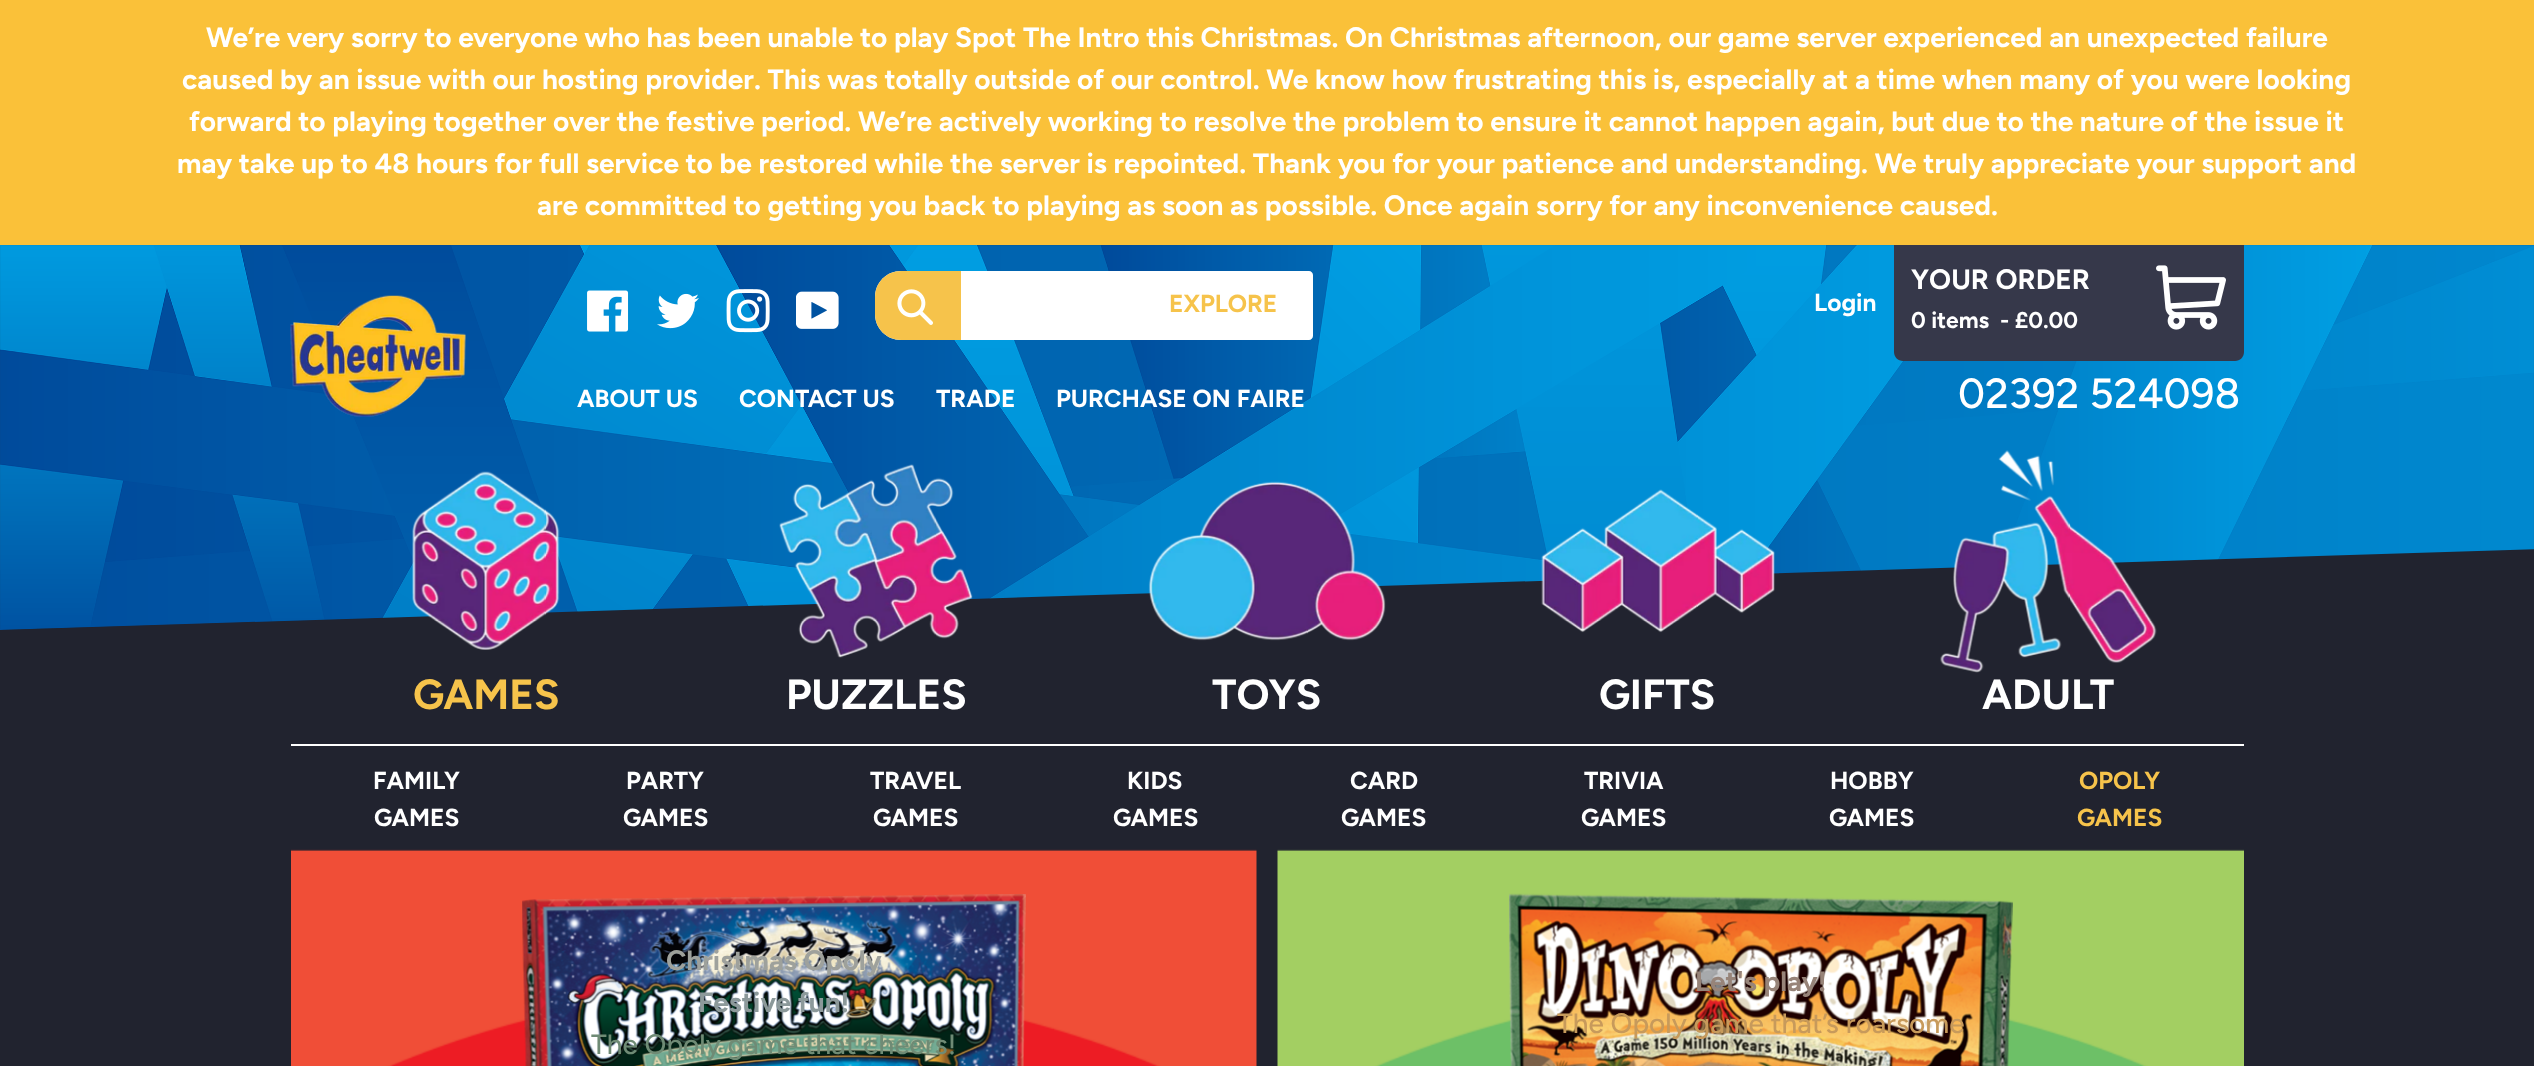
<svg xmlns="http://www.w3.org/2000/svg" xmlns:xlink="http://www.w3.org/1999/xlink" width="2534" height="1066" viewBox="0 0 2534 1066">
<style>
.cls-1{font:bold 28px Figtree;fill:#ffffff}
.cls-2{font:bold 24.5px Figtree;fill:#f6c34b}
.cls-3{font:bold 24.5px Figtree;fill:#ffffff}
.cls-4{font:bold 22.75px Figtree;fill:#ffffff}
.cls-5{font:500 42px Figtree;fill:#ffffff}
.cls-6{font:bold 42px Figtree;fill:#f6c34b}
.cls-7{font:bold 42px Figtree;fill:#ffffff}
.cls-8{font:bold 28px Figtree;fill:#9ea19c}
.cls-9{font:bold 28px Figtree;fill:#8c999a}
.cls-10{font:500 28px Figtree;fill:#6f8b75}
.cls-11{font:bold 28px Figtree;fill:#978479}
.cls-12{font:500 28px Figtree;fill:#c79a5b}
</style>
<rect width="100%" height="100%" fill="#21232f"/>
<rect fill="#fac139" x="0" y="0" width="2534" height="245"/>
<image xlink:href="image0.png" x="0" y="245" width="2534" height="385"/>
<image xlink:href="image1.png" x="290" y="295" width="176" height="122"/>
<image xlink:href="image2.png" x="587" y="290" width="42" height="42"/>
<image xlink:href="image3.png" x="657" y="293" width="42" height="36"/>
<image xlink:href="image4.png" x="726" y="289" width="44" height="44"/>
<image xlink:href="image5.png" x="796" y="291" width="43" height="38"/>
<path fill="#ffffff" d="M901 271H1309C1311 271 1313 273 1313 275V336C1313 338 1311 340 1309 340H901C886.5 340 875 328.5 875 314V297C875 282.5 886.5 271 901 271Z"/>
<path fill="#f6c34b" d="M901 271H961V340H901C886.5 340 875 328.5 875 314V297C875 282.5 886.5 271 901 271Z"/>
<image xlink:href="image6.png" x="897" y="289" width="36" height="36"/>
<path fill="#36384a" d="M1894 245H2244V352C2244 357 2240 361 2235 361H1903C1898 361 1894 357 1894 352Z"/>
<image xlink:href="image7.png" x="2156" y="265" width="70" height="65"/>
<image xlink:href="image8.png" x="412" y="471" width="148" height="179"/>
<rect fill="#ffffff" x="291" y="744" width="1953" height="2"/>
<image xlink:href="image9.png" x="779" y="464" width="194" height="194"/>
<image xlink:href="image10.png" x="1148" y="481" width="238" height="160"/>
<image xlink:href="image11.png" x="1541" y="489" width="234" height="144"/>
<image xlink:href="image12.png" x="1940" y="450" width="217" height="223"/>
<image xlink:href="image13.png" x="291" y="849" width="966" height="217"/>
<image xlink:href="image14.png" x="522" y="894" width="504" height="172"/>
<image xlink:href="image15.png" x="1277" y="849" width="967" height="217"/>
<image xlink:href="image16.png" x="1509" y="893" width="504" height="173"/>
<text class="cls-1" x="206" y="47">We’re very sorry to everyone who has been unable to play Spot The Intro this Christmas. On Christmas afternoon, our game server experienced an unexpected failure</text>
<text class="cls-1" x="182" y="89">caused by an issue with our hosting provider. This was totally outside of our control. We know how frustrating this is, especially at a time when many of you were looking</text>
<text class="cls-1" x="189" y="131">forward to playing together over the festive period. We’re actively working to resolve the problem to ensure it cannot happen again, but due to the nature of the issue it</text>
<text class="cls-1" x="177" y="173">may take up to 48 hours for full service to be restored while the server is repointed. Thank you for your patience and understanding. We truly appreciate your support and</text>
<text class="cls-1" x="537" y="215">are committed to getting you back to playing as soon as possible. Once again sorry for any inconvenience caused.</text>
<text class="cls-2" x="1169" y="312">EXPLORE</text>
<text class="cls-3" x="577" y="407">ABOUT US</text>
<text class="cls-3" x="739" y="407">CONTACT US</text>
<text class="cls-3" x="936" y="407">TRADE</text>
<text class="cls-3" x="1056" y="407">PURCHASE ON FAIRE</text>
<text class="cls-3" x="1814" y="311">Login</text>
<text class="cls-1" x="1911" y="289">YOUR ORDER</text>
<text class="cls-4" xml:space="preserve" x="1911" y="328">0 items  - £0.00</text>
<text class="cls-5" x="1958" y="408">02392 524098</text>
<text class="cls-6" x="413" y="709">GAMES</text>
<text class="cls-3" x="373" y="789">FAMILY</text>
<text class="cls-3" x="374" y="826">GAMES</text>
<text class="cls-3" x="626" y="789">PARTY</text>
<text class="cls-3" x="623" y="826">GAMES</text>
<text class="cls-3" x="870" y="789">TRAVEL</text>
<text class="cls-3" x="873" y="826">GAMES</text>
<text class="cls-3" x="1127" y="789">KIDS</text>
<text class="cls-3" x="1113" y="826">GAMES</text>
<text class="cls-3" x="1350" y="789">CARD</text>
<text class="cls-3" x="1341" y="826">GAMES</text>
<text class="cls-3" x="1584" y="789">TRIVIA</text>
<text class="cls-3" x="1581" y="826">GAMES</text>
<text class="cls-3" x="1830" y="789">HOBBY</text>
<text class="cls-3" x="1829" y="826">GAMES</text>
<text class="cls-2" x="2079" y="789">OPOLY</text>
<text class="cls-2" x="2077" y="826">GAMES</text>
<text class="cls-7" x="786" y="709">PUZZLES</text>
<text class="cls-7" x="1212" y="709">TOYS</text>
<text class="cls-7" x="1599" y="709">GIFTS</text>
<text class="cls-7" x="1982" y="709">ADULT</text>
<text class="cls-8" x="666" y="970">Christmas Opoly</text>
<text class="cls-9" x="698" y="1012">Festive fun!</text>
<text class="cls-10" x="591" y="1054">The Opoly game that cheers!</text>
<text class="cls-11" x="1695" y="991">Let's play!</text>
<text class="cls-12" x="1557" y="1033">The Opoly game that’s roarsome</text>
</svg>
